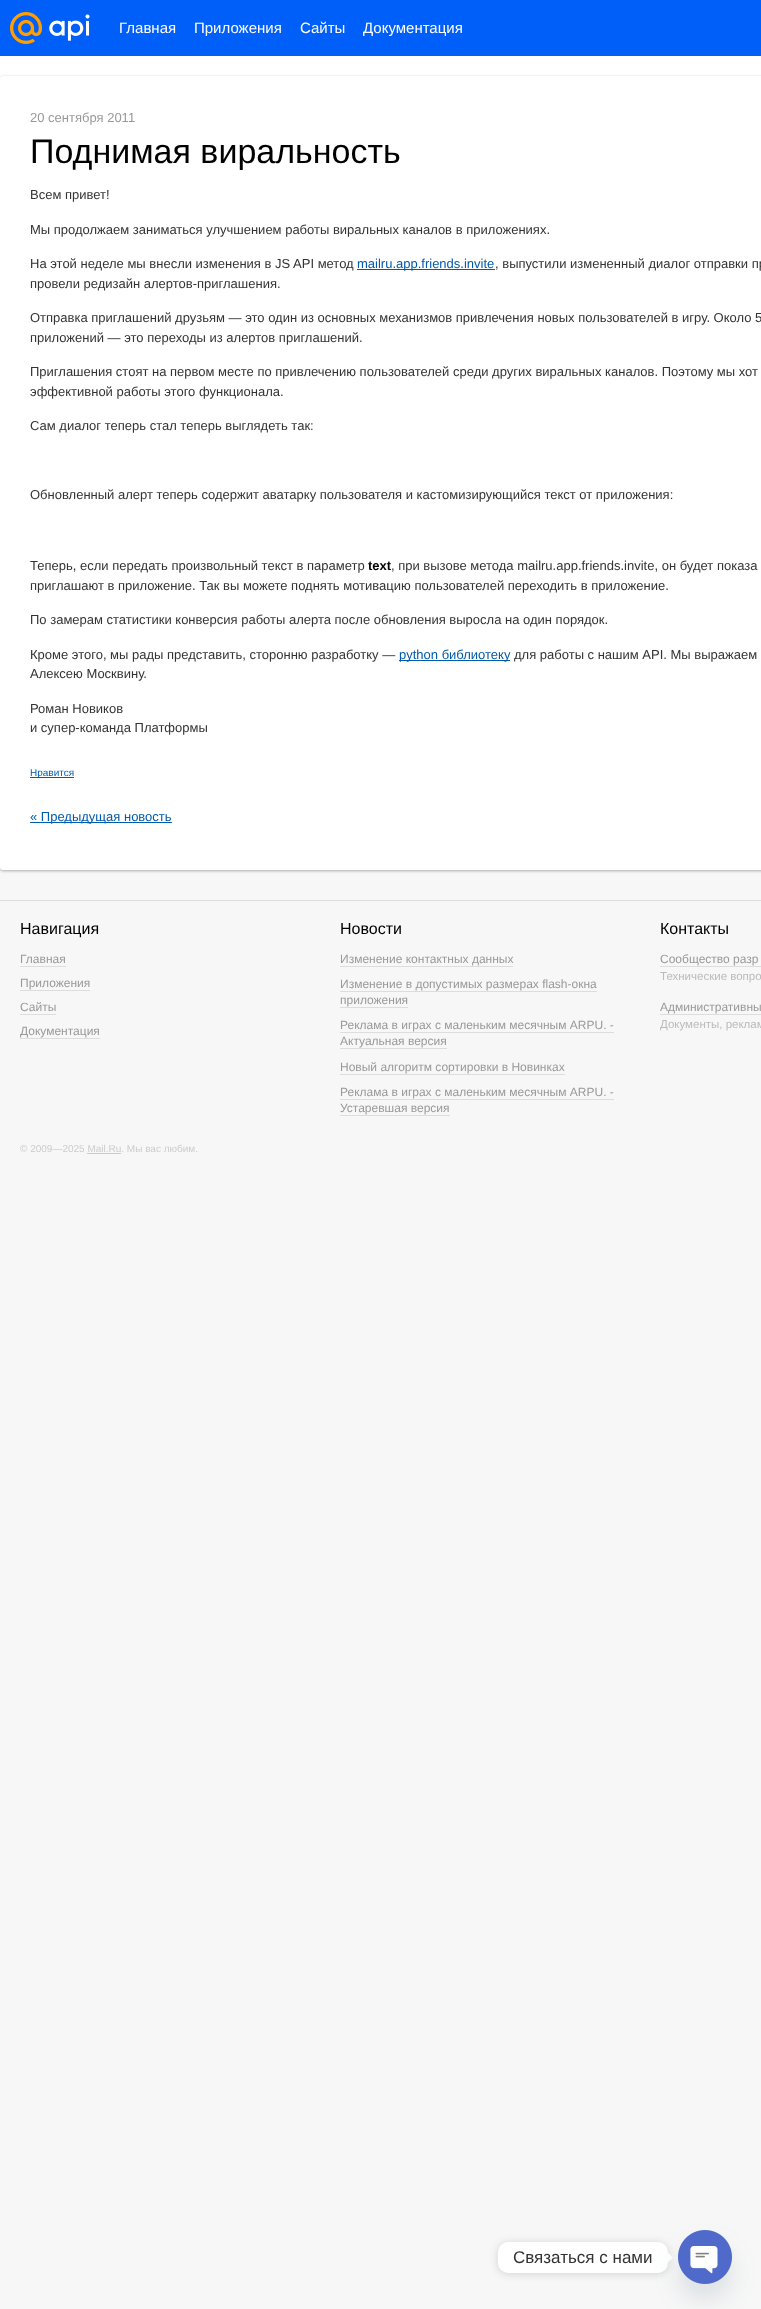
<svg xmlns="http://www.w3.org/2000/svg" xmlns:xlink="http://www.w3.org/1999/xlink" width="761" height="2309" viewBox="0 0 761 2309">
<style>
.cls-1{font:15px Liberation Sans;fill:#ffffff}
.cls-2{font:13px Liberation Sans;fill:#999999}
.cls-3{font:34px Liberation Sans;fill:#000000}
.cls-4{font:13px Liberation Sans;fill:#333333}
.cls-5{font:13px Liberation Sans;fill:#005aad}
.cls-6{font:bold 13px Liberation Sans;fill:#000000}
.cls-7{font:10px Liberation Sans;fill:#005aad}
.cls-8{font:16px Liberation Sans;fill:#000000}
.cls-9{font:12px Liberation Sans;fill:#999999}
.cls-10{font:11.5px Liberation Sans;fill:#bbbbbb}
.cls-11{font:10px Liberation Sans;fill:#cccccc}
.cls-12{font:17px Liberation Sans;fill:#333333}
</style>
<rect width="100%" height="100%" fill="#f7f7f7"/>
<image xlink:href="image0.png" x="0" y="56" width="761" height="23"/>
<rect fill="#005ff9" x="0" y="0" width="761" height="56"/>
<image xlink:href="image1.png" x="10" y="12" width="80" height="32"/>
<rect fill="#000000" fill-opacity="0.3" filter="blur(1.5px)" x="0" y="77" width="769" height="794" rx="3"/>
<rect fill="#ffffff" x="0" y="76" width="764" height="794" rx="3"/>
<rect fill="#005aad" x="357" y="269" width="138" height="1"/>
<rect fill="#005aad" x="399" y="660" width="111" height="1"/>
<rect fill="#005aad" x="30" y="777" width="44" height="1"/>
<rect fill="#005aad" x="30" y="822" width="142" height="1"/>
<rect fill="#dddddd" x="0" y="900" width="761" height="1"/>
<rect fill="#dddddd" x="20" y="966" width="46" height="1"/>
<rect fill="#dddddd" x="20" y="990" width="70" height="1"/>
<rect fill="#dddddd" x="20" y="1014" width="36" height="1"/>
<rect fill="#dddddd" x="20" y="1038" width="80" height="1"/>
<rect fill="#dddddd" x="340" y="966" width="173" height="1"/>
<rect fill="#dddddd" x="340" y="991" width="257" height="1"/>
<rect fill="#dddddd" x="340" y="1007" width="68" height="1"/>
<rect fill="#dddddd" x="340" y="1032" width="274" height="1"/>
<rect fill="#dddddd" x="340" y="1048" width="107" height="1"/>
<rect fill="#dddddd" x="340" y="1074" width="225" height="1"/>
<rect fill="#dddddd" x="340" y="1099" width="274" height="1"/>
<rect fill="#dddddd" x="340" y="1115" width="110" height="1"/>
<rect fill="#dddddd" x="660" y="966" width="101" height="1"/>
<rect fill="#dddddd" x="660" y="1014" width="101" height="1"/>
<rect fill="#cccccc" x="87" y="1153" width="34" height="1"/>
<rect fill="#000000" fill-opacity="0.15" filter="blur(4px)" x="498" y="2243" width="170" height="31" rx="10"/>
<rect fill="#ffffff" x="498" y="2242" width="170" height="31" rx="10"/>
<path fill="#ffffff" d="M668 2262.5V2252.5L673 2257.5Z"/>
<rect fill="#49687e" fill-opacity="0.16" filter="blur(12px)" x="678" y="2246" width="54" height="54" rx="27"/>
<image xlink:href="image2.png" x="678" y="2230" width="54" height="54"/>
<text class="cls-1" x="119" y="33">Главная</text>
<text class="cls-1" x="194" y="33">Приложения</text>
<text class="cls-1" x="300" y="33">Сайты</text>
<text class="cls-1" x="363" y="33">Документация</text>
<text class="cls-2" x="30" y="122">20 сентября 2011</text>
<text class="cls-3" x="30" y="163">Поднимая виральность</text>
<text class="cls-4" x="30" y="199">Всем привет!</text>
<text class="cls-4" x="30" y="234">Мы продолжаем заниматься улучшением работы виральных каналов в приложениях.</text>
<text class="cls-4" x="30" y="268">На этой неделе мы внесли изменения в JS API метод</text>
<text class="cls-5" x="357" y="268">mailru.app.friends.invite</text>
<text class="cls-4" x="495" y="268">, выпустили измененный диалог отправки пр</text>
<text class="cls-4" x="30" y="288">провели редизайн алертов-приглашения.</text>
<text class="cls-4"><tspan x="30" y="322">Отправка приглашений друзьям — это один из основных механизмов привлечения новых пользователей в игру. Около 5</tspan><tspan x="30" y="342">приложений — это переходы из алертов приглашений.</tspan></text>
<text class="cls-4"><tspan x="30" y="376">Приглашения стоят на первом месте по привлечению пользователей среди других виральных каналов. Поэтому мы хот</tspan><tspan x="30" y="396">эффективной работы этого функционала.</tspan></text>
<text class="cls-4" x="30" y="430">Сам диалог теперь стал теперь выглядеть так:</text>
<text class="cls-4" x="30" y="499">Обновленный алерт теперь содержит аватарку пользователя и кастомизирующийся текст от приложения:</text>
<text class="cls-4" x="30" y="570">Теперь, если передать произвольный текст в параметр</text>
<text class="cls-6" x="368" y="570">text</text>
<text class="cls-4" x="391" y="570">, при вызове метода mailru.app.friends.invite, он будет показа</text>
<text class="cls-4" x="30" y="590">приглашают в приложение. Так вы можете поднять мотивацию пользователей переходить в приложение.</text>
<text class="cls-4" x="30" y="624">По замерам статистики конверсия работы алерта после обновления выросла на один порядок.</text>
<text class="cls-4" x="30" y="659">Кроме этого, мы рады представить, сторонню разработку —</text>
<text class="cls-5" x="399" y="659">python библиотеку</text>
<text class="cls-4" x="514" y="659">для работы с нашим API. Мы выражаем</text>
<text class="cls-4" x="30" y="678">Алексею Москвину.</text>
<text class="cls-4"><tspan x="30" y="713">Роман Новиков</tspan><tspan x="30" y="732">и супер-команда Платформы</tspan></text>
<text class="cls-7" x="30" y="776">Нравится</text>
<text class="cls-5" x="30" y="821">« Предыдущая новость</text>
<text class="cls-8" x="20" y="934">Навигация</text>
<text class="cls-9" x="20" y="963">Главная</text>
<text class="cls-9" x="20" y="987">Приложения</text>
<text class="cls-9" x="20" y="1011">Сайты</text>
<text class="cls-9" x="20" y="1035">Документация</text>
<text class="cls-8" x="340" y="934">Новости</text>
<text class="cls-9" x="340" y="963">Изменение контактных данных</text>
<text class="cls-9"><tspan x="340" y="988">Изменение в допустимых размерах flash-окна</tspan><tspan x="340" y="1004">приложения</tspan></text>
<text class="cls-9"><tspan x="340" y="1029">Реклама в играх с маленьким месячным ARPU. -</tspan><tspan x="340" y="1045">Актуальная версия</tspan></text>
<text class="cls-9" x="340" y="1071">Новый алгоритм сортировки в Новинках</text>
<text class="cls-9"><tspan x="340" y="1096">Реклама в играх с маленьким месячным ARPU. -</tspan><tspan x="340" y="1112">Устаревшая версия</tspan></text>
<text class="cls-8" x="660" y="934">Контакты</text>
<text class="cls-9" x="660" y="963">Сообщество разр</text>
<text class="cls-10" x="660" y="980">Технические вопро</text>
<text class="cls-9" x="660" y="1011">Административны</text>
<text class="cls-10" x="660" y="1028">Документы, реклам</text>
<text class="cls-11" x="20" y="1152">© 2009—2025 Mail.Ru. Мы вас любим.</text>
<text class="cls-12" x="513" y="2263">Связаться с нами</text>
</svg>
